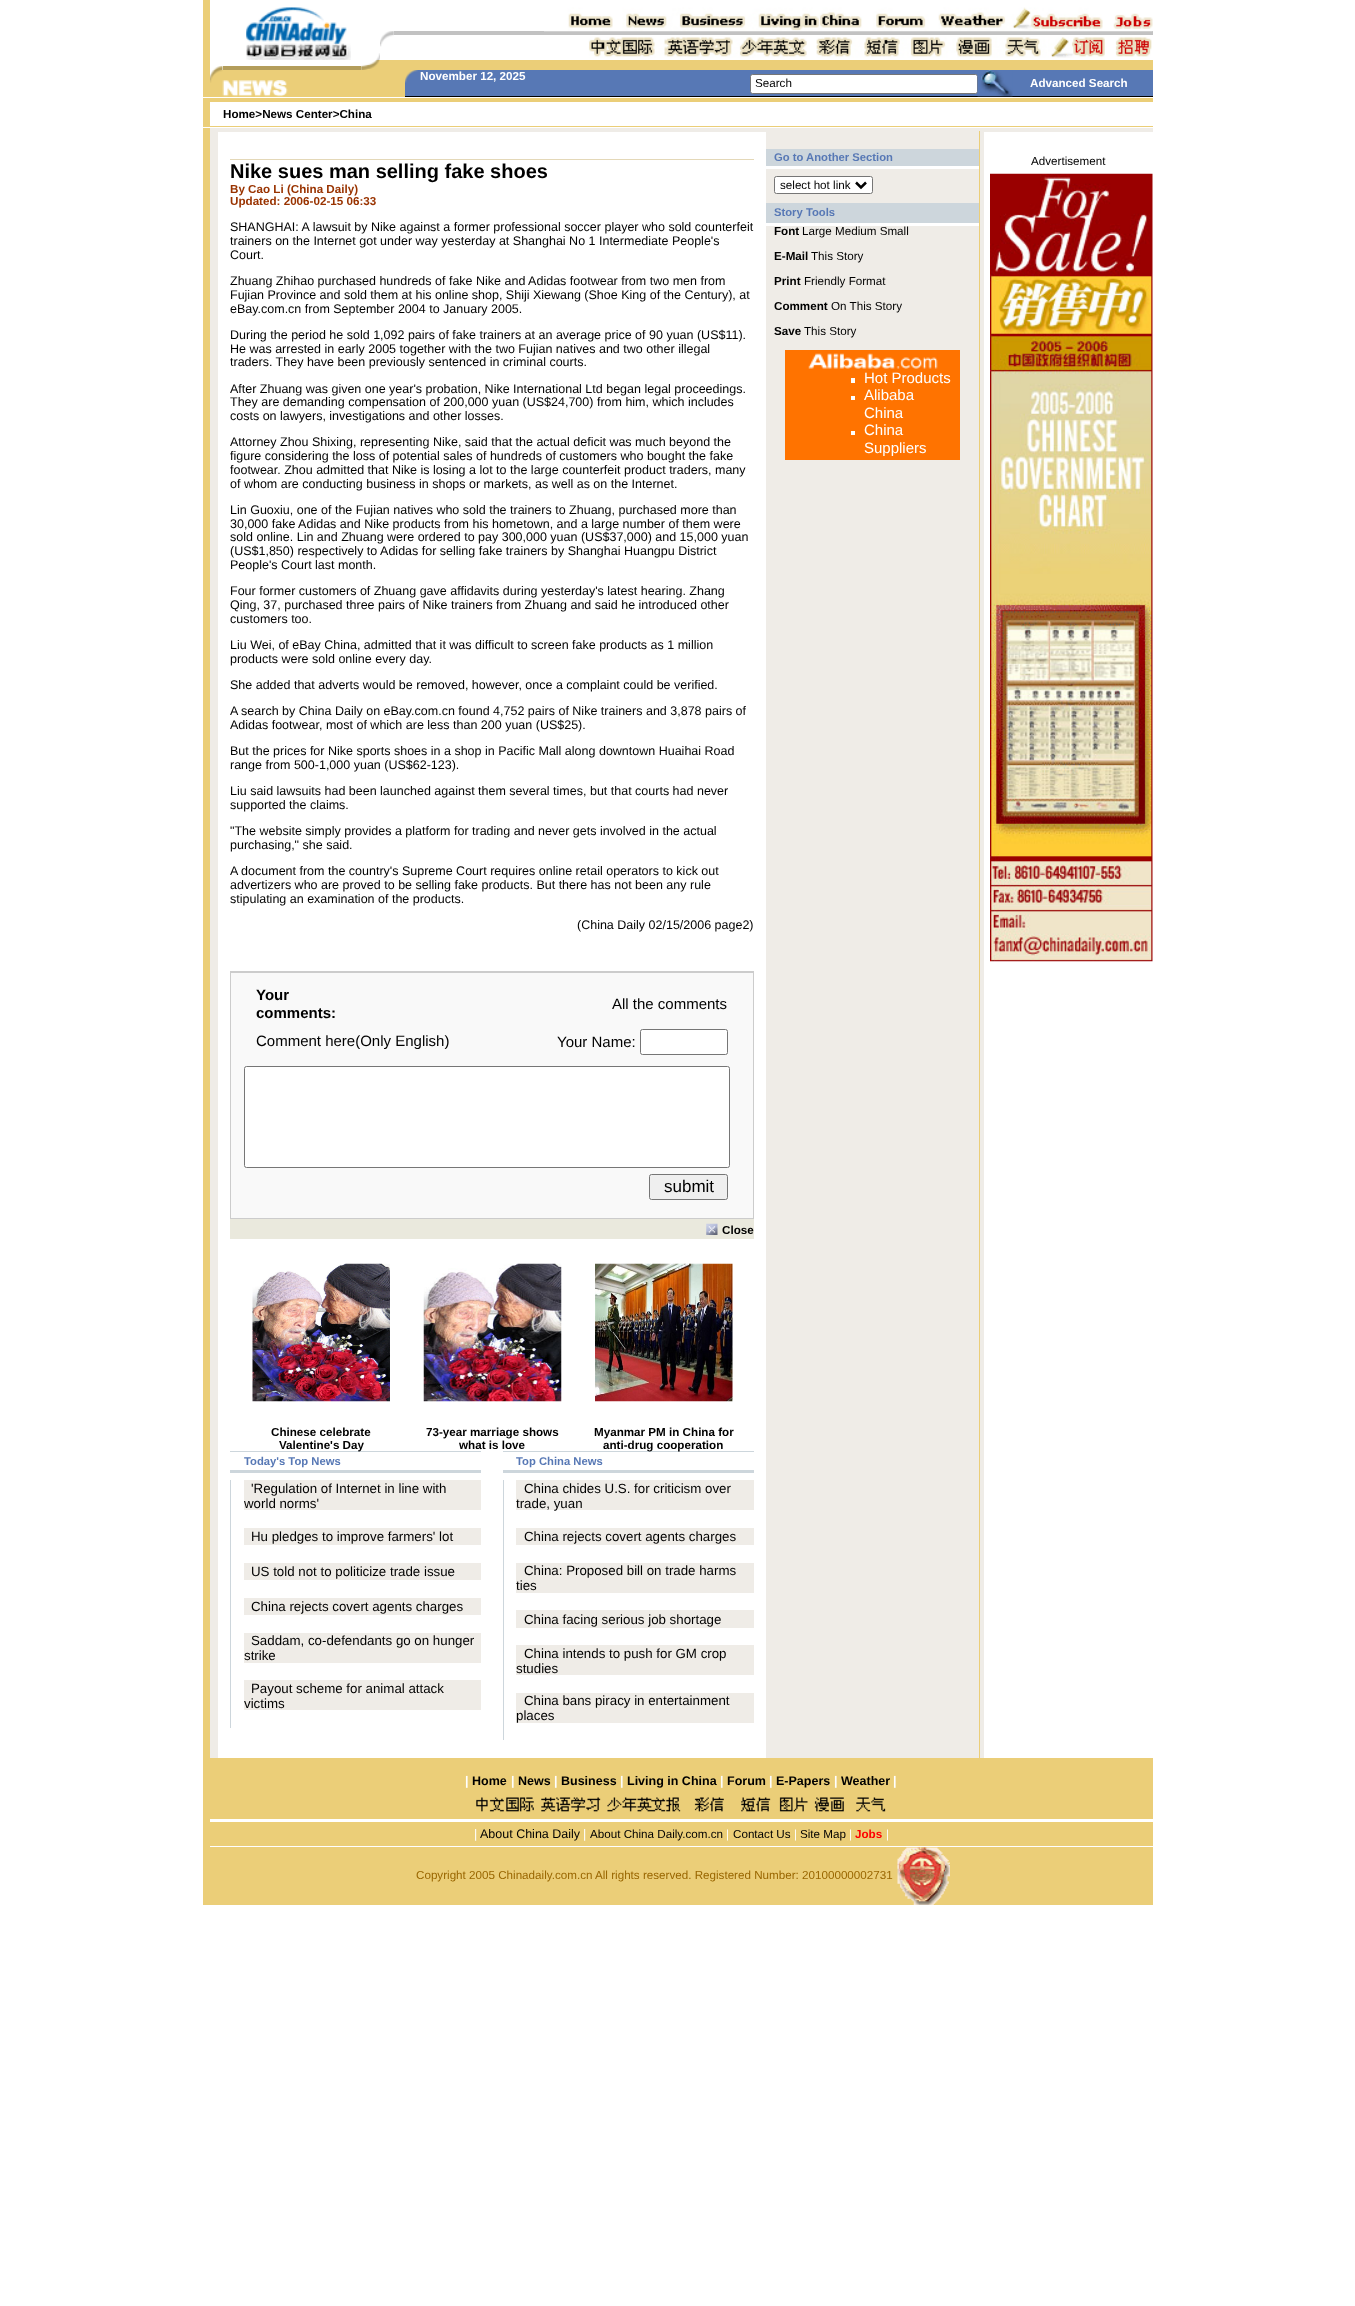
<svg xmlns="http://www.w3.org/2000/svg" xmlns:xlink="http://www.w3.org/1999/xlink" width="1355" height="2306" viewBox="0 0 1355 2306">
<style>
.cls-1{font:bold 11.65px Liberation Sans;fill:#ffffff}
.cls-2{font:11.65px Liberation Sans;fill:#000000}
.cls-3{font:bold 11.65px Liberation Sans;fill:#000000}
.cls-4{font:bold 11.25px Liberation Sans;fill:#5778b5}
.cls-5{font:15px Liberation Sans;fill:#ffffff}
.cls-6{font:bold 20px Liberation Sans;fill:#000000}
.cls-7{font:bold 11.65px Liberation Sans;fill:#993300}
.cls-8{font:12.5px Liberation Sans;fill:#000000}
.cls-9{font:bold 15px Liberation Sans;fill:#000000}
.cls-10{font:15px Liberation Sans;fill:#000000}
.cls-11{font:17px Liberation Sans;fill:#000000}
.cls-12{font:13.3px Liberation Sans;fill:#000000}
.cls-13{font:bold 12.5px Liberation Sans;fill:#ffffff}
.cls-14{font:bold 12.5px Liberation Sans;fill:#000000}
.cls-15{font:12.5px Liberation Sans;fill:#ffffff}
.cls-16{font:11.65px Liberation Sans;fill:#ffffff}
.cls-17{font:bold 11.65px Liberation Sans;fill:#ff0000}
.cls-18{font:11.65px Liberation Sans;fill:#996600}
</style>
<rect width="100%" height="100%" fill="#ffffff"/>
<rect fill="#ebce78" x="203" y="0" width="7" height="97"/>
<image xlink:href="image0.png" x="246" y="7" width="105" height="53"/>
<rect fill="#c2c2c2" x="394" y="31" width="759" height="4"/>
<image xlink:href="image1.png" x="544" y="7" width="609" height="25"/>
<image xlink:href="image2.png" x="380" y="31" width="14" height="16"/>
<image xlink:href="image3.png" x="376" y="53" width="4" height="7"/>
<image xlink:href="image4.png" x="588" y="37" width="564" height="21"/>
<image xlink:href="image5.png" x="361" y="60" width="19" height="10"/>
<rect fill="#ebce78" x="380" y="60" width="773" height="6"/>
<image xlink:href="image6.png" x="213" y="66" width="10" height="4"/>
<rect fill="#b39d5b" x="223" y="66" width="138" height="4"/>
<rect fill="#ebce78" x="380" y="66" width="773" height="4"/>
<rect fill="#ebce78" x="210" y="70" width="195" height="26"/>
<image xlink:href="image7.png" x="210" y="70" width="13" height="13"/>
<rect fill="#5778b5" x="405" y="70" width="748" height="26"/>
<image xlink:href="image8.png" x="405" y="70" width="13" height="13"/>
<rect fill="#ebce78" x="210" y="96" width="195" height="1"/>
<image xlink:href="image9.png" x="222" y="80" width="66" height="17"/>
<rect fill="#ffffff" stroke="#767676" x="750.5" y="74.5" width="227" height="19" rx="2"/>
<rect fill="#000000" x="405" y="96" width="748" height="1"/>
<image xlink:href="image10.png" x="977" y="70" width="36" height="27"/>
<rect fill="#ebce78" x="203" y="98" width="950" height="4"/>
<rect fill="#ebce78" x="203" y="101" width="7" height="26"/>
<rect fill="#ebce78" x="210" y="126" width="943" height="1"/>
<rect fill="#ebce78" x="203" y="128" width="7" height="1630"/>
<rect fill="#efece7" x="210" y="128" width="943" height="4"/>
<rect fill="#efece7" x="210" y="131" width="8" height="1627"/>
<rect fill="#efece7" x="766" y="132" width="213" height="17"/>
<rect fill="#ebce78" x="979" y="131" width="1" height="1627"/>
<rect fill="#efece7" x="980" y="131" width="4" height="1627"/>
<rect fill="#efece7" x="766" y="169" width="213" height="1589"/>
<rect fill="#cdd6dc" x="766" y="149" width="213" height="17"/>
<rect fill="#ffffff" stroke="#767676" x="774.5" y="176.5" width="98" height="17" rx="2"/>
<path fill="none" stroke="#000000" stroke-width="2.5" d="M856 182.5L861 187.5L866 182.5"/>
<rect fill="#cdd6dc" x="766" y="203" width="213" height="20"/>
<rect fill="#ffffff" x="766" y="223" width="213" height="3"/>
<rect fill="#ff7300" x="785" y="350" width="175" height="110"/>
<image xlink:href="image11.png" x="808" y="353" width="130" height="16"/>
<rect fill="#ffffff" x="851" y="378" width="4" height="5"/>
<rect fill="#ffffff" x="851" y="396" width="4" height="4"/>
<rect fill="#ffffff" x="851" y="431" width="4" height="4"/>
<image xlink:href="image12.png" x="990" y="173" width="163" height="789"/>
<rect fill="#e4d8b8" x="230" y="159" width="524" height="1"/>
<rect fill="#cccccc" x="230" y="971" width="524" height="248"/>
<rect fill="#f9f9f9" x="231" y="973" width="522" height="245"/>
<rect fill="#ffffff" stroke="#767676" x="640.5" y="1029.5" width="87" height="25" rx="2"/>
<rect fill="#ffffff" stroke="#767676" x="244.5" y="1066.5" width="485" height="101" rx="2"/>
<rect fill="#efefef" stroke="#767676" x="649.5" y="1174.5" width="78" height="25" rx="2"/>
<rect fill="#eae9dd" x="230" y="1219" width="524" height="20"/>
<image xlink:href="image13.png" x="706" y="1223" width="12" height="12"/>
<image xlink:href="image14.png" x="252" y="1263" width="138" height="139"/>
<image xlink:href="image15.png" x="423" y="1263" width="139" height="139"/>
<image xlink:href="image16.png" x="595" y="1263" width="138" height="139"/>
<rect fill="#cdd6dc" x="230" y="1451" width="251" height="1"/>
<rect fill="#cdd6dc" x="503" y="1451" width="251" height="1"/>
<rect fill="#cdd6dc" x="230" y="1470" width="251" height="3"/>
<rect fill="#cdd6dc" x="503" y="1470" width="251" height="3"/>
<rect fill="#cdd6dc" x="230" y="1480" width="1" height="248"/>
<rect fill="#efece7" x="244" y="1480" width="237" height="30"/>
<rect fill="#efece7" x="244" y="1528" width="237" height="17"/>
<rect fill="#efece7" x="244" y="1563" width="237" height="17"/>
<rect fill="#efece7" x="244" y="1598" width="237" height="17"/>
<rect fill="#efece7" x="244" y="1633" width="237" height="30"/>
<rect fill="#efece7" x="244" y="1680" width="237" height="30"/>
<rect fill="#cdd6dc" x="503" y="1480" width="1" height="260"/>
<rect fill="#efece7" x="516" y="1480" width="238" height="30"/>
<rect fill="#efece7" x="516" y="1528" width="238" height="17"/>
<rect fill="#efece7" x="516" y="1563" width="238" height="30"/>
<rect fill="#efece7" x="516" y="1610" width="238" height="18"/>
<rect fill="#efece7" x="516" y="1645" width="238" height="30"/>
<rect fill="#efece7" x="516" y="1693" width="238" height="30"/>
<rect fill="#ebce78" x="203" y="1758" width="950" height="147"/>
<image xlink:href="image17.png" x="476" y="1797" width="410" height="15"/>
<rect fill="#ffffff" x="210" y="1819" width="943" height="3"/>
<rect fill="#ffffff" x="210" y="1846" width="943" height="1"/>
<image xlink:href="image18.png" x="897" y="1847" width="53" height="58"/>
<text class="cls-1" x="420" y="80">November 12, 2025</text>
<text class="cls-2" x="755" y="87">Search</text>
<text class="cls-1" x="1030" y="87">Advanced Search</text>
<text class="cls-3" x="223" y="118">Home&gt;News Center&gt;China</text>
<text class="cls-4" x="774" y="161">Go to Another Section</text>
<text class="cls-2" x="780" y="189">select hot link</text>
<text class="cls-4" x="774" y="216">Story Tools</text>
<text class="cls-3" x="774" y="235">Font</text>
<text class="cls-2" x="802" y="235">Large Medium Small</text>
<text class="cls-3" x="774" y="260">E-Mail</text>
<text class="cls-2" x="811" y="260">This Story</text>
<text class="cls-3" x="774" y="285">Print</text>
<text class="cls-2" x="804" y="285">Friendly Format</text>
<text class="cls-3" x="774" y="310">Comment</text>
<text class="cls-2" x="831" y="310">On This Story</text>
<text class="cls-3" x="774" y="335">Save</text>
<text class="cls-2" x="804" y="335">This Story</text>
<text class="cls-5"><tspan x="864" y="383">Hot Products</tspan><tspan x="864" y="400">Alibaba</tspan><tspan x="864" y="418">China</tspan><tspan x="864" y="435">China</tspan><tspan x="864" y="453">Suppliers</tspan></text>
<text class="cls-2" x="1031" y="165">Advertisement</text>
<text class="cls-6" x="230" y="178">Nike sues man selling fake shoes</text>
<text class="cls-7"><tspan x="230" y="193">By Cao Li (China Daily)</tspan><tspan x="230" y="205">Updated: 2006-02-15 06:33</tspan></text>
<text class="cls-8"><tspan x="230" y="231">SHANGHAI: A lawsuit by Nike against a former professional soccer player who sold counterfeit</tspan><tspan x="230" y="245">trainers on the Internet got under way yesterday at Shanghai No 1 Intermediate People's</tspan><tspan x="230" y="259">Court.</tspan></text>
<text class="cls-8"><tspan x="230" y="285">Zhuang Zhihao purchased hundreds of fake Nike and Adidas footwear from two men from</tspan><tspan x="230" y="299">Fujian Province and sold them at his online shop, Shiji Xiewang (Shoe King of the Century), at</tspan><tspan x="230" y="313">eBay.com.cn from September 2004 to January 2005.</tspan></text>
<text class="cls-8"><tspan x="230" y="339">During the period he sold 1,092 pairs of fake trainers at an average price of 90 yuan (US$11).</tspan><tspan x="230" y="353">He was arrested in early 2005 together with the two Fujian natives and two other illegal</tspan><tspan x="230" y="366">traders. They have been previously sentenced in criminal courts.</tspan></text>
<text class="cls-8"><tspan x="230" y="393">After Zhuang was given one year's probation, Nike International Ltd began legal proceedings.</tspan><tspan x="230" y="406">They are demanding compensation of 200,000 yuan (US$24,700) from him, which includes</tspan><tspan x="230" y="420">costs on lawyers, investigations and other losses.</tspan></text>
<text class="cls-8"><tspan x="230" y="446">Attorney Zhou Shixing, representing Nike, said that the actual deficit was much beyond the</tspan><tspan x="230" y="460">figure considering the loss of potential sales of hundreds of customers who bought the fake</tspan><tspan x="230" y="474">footwear. Zhou admitted that Nike is losing a lot to the large counterfeit product traders, many</tspan><tspan x="230" y="488">of whom are conducting business in shops or markets, as well as on the Internet.</tspan></text>
<text class="cls-8"><tspan x="230" y="514">Lin Guoxiu, one of the Fujian natives who sold the trainers to Zhuang, purchased more than</tspan><tspan x="230" y="528">30,000 fake Adidas and Nike products from his hometown, and a large number of them were</tspan><tspan x="230" y="541">sold online. Lin and Zhuang were ordered to pay 300,000 yuan (US$37,000) and 15,000 yuan</tspan><tspan x="230" y="555">(US$1,850) respectively to Adidas for selling fake trainers by Shanghai Huangpu District</tspan><tspan x="230" y="569">People's Court last month.</tspan></text>
<text class="cls-8"><tspan x="230" y="595">Four former customers of Zhuang gave affidavits during yesterday's latest hearing. Zhang</tspan><tspan x="230" y="609">Qing, 37, purchased three pairs of Nike trainers from Zhuang and said he introduced other</tspan><tspan x="230" y="623">customers too.</tspan></text>
<text class="cls-8"><tspan x="230" y="649">Liu Wei, of eBay China, admitted that it was difficult to screen fake products as 1 million</tspan><tspan x="230" y="663">products were sold online every day.</tspan></text>
<text class="cls-8" x="230" y="689">She added that adverts would be removed, however, once a complaint could be verified.</text>
<text class="cls-8"><tspan x="230" y="715">A search by China Daily on eBay.com.cn found 4,752 pairs of Nike trainers and 3,878 pairs of</tspan><tspan x="230" y="729">Adidas footwear, most of which are less than 200 yuan (US$25).</tspan></text>
<text class="cls-8"><tspan x="230" y="755">But the prices for Nike sports shoes in a shop in Pacific Mall along downtown Huaihai Road</tspan><tspan x="230" y="769">range from 500-1,000 yuan (US$62-123).</tspan></text>
<text class="cls-8"><tspan x="230" y="795">Liu said lawsuits had been launched against them several times, but that courts had never</tspan><tspan x="230" y="809">supported the claims.</tspan></text>
<text class="cls-8"><tspan x="230" y="835">"The website simply provides a platform for trading and never gets involved in the actual</tspan><tspan x="230" y="849">purchasing," she said.</tspan></text>
<text class="cls-8"><tspan x="230" y="875">A document from the country's Supreme Court requires online retail operators to kick out</tspan><tspan x="230" y="889">advertizers who are proved to be selling fake products. But there has not been any rule</tspan><tspan x="230" y="903">stipulating an examination of the products.</tspan></text>
<text class="cls-8" x="577" y="929">(China Daily 02/15/2006 page2)</text>
<text class="cls-9"><tspan x="256" y="1000">Your</tspan><tspan x="256" y="1018">comments:</tspan></text>
<text class="cls-10" x="612" y="1009">All the comments</text>
<text class="cls-10" x="256" y="1046">Comment here(Only English)</text>
<text class="cls-10" x="557" y="1047">Your Name:</text>
<text class="cls-11" x="664" y="1192">submit</text>
<text class="cls-3" x="722" y="1234">Close</text>
<text class="cls-3" x="271" y="1436">Chinese celebrate</text>
<text class="cls-3" x="279" y="1449">Valentine's Day</text>
<text class="cls-3" x="426" y="1436">73-year marriage shows</text>
<text class="cls-3" x="459" y="1449">what is love</text>
<text class="cls-3" x="594" y="1436">Myanmar PM in China for</text>
<text class="cls-3" x="603" y="1449">anti-drug cooperation</text>
<text class="cls-4" x="244" y="1465">Today's Top News</text>
<text class="cls-4" x="516" y="1465">Top China News</text>
<text class="cls-12" x="251" y="1493">'Regulation of Internet in line with</text>
<text class="cls-12" x="244" y="1508">world norms'</text>
<text class="cls-12" x="251" y="1541">Hu pledges to improve farmers' lot</text>
<text class="cls-12" x="251" y="1576">US told not to politicize trade issue</text>
<text class="cls-12" x="251" y="1611">China rejects covert agents charges</text>
<text class="cls-12" x="251" y="1645">Saddam, co-defendants go on hunger</text>
<text class="cls-12" x="244" y="1660">strike</text>
<text class="cls-12" x="251" y="1693">Payout scheme for animal attack</text>
<text class="cls-12" x="244" y="1708">victims</text>
<text class="cls-12" x="524" y="1493">China chides U.S. for criticism over</text>
<text class="cls-12" x="516" y="1508">trade, yuan</text>
<text class="cls-12" x="524" y="1541">China rejects covert agents charges</text>
<text class="cls-12" x="524" y="1575">China: Proposed bill on trade harms</text>
<text class="cls-12" x="516" y="1590">ties</text>
<text class="cls-12" x="524" y="1624">China facing serious job shortage</text>
<text class="cls-12" x="524" y="1658">China intends to push for GM crop</text>
<text class="cls-12" x="516" y="1673">studies</text>
<text class="cls-12" x="524" y="1705">China bans piracy in entertainment</text>
<text class="cls-12" x="516" y="1720">places</text>
<text class="cls-13" x="465" y="1785">|</text>
<text class="cls-14" x="472" y="1785">Home</text>
<text class="cls-13" x="511" y="1785">|</text>
<text class="cls-14" x="518" y="1785">News</text>
<text class="cls-13" x="554" y="1785">|</text>
<text class="cls-14" x="561" y="1785">Business</text>
<text class="cls-13" x="620" y="1785">|</text>
<text class="cls-14" x="627" y="1785">Living in China</text>
<text class="cls-13" x="720" y="1785">|</text>
<text class="cls-14" x="727" y="1785">Forum</text>
<text class="cls-13" x="769" y="1785">|</text>
<text class="cls-14" x="776" y="1785">E-Papers</text>
<text class="cls-13" x="834" y="1785">|</text>
<text class="cls-14" x="841" y="1785">Weather</text>
<text class="cls-13" x="893" y="1785">|</text>
<text class="cls-15" x="474" y="1838">|</text>
<text class="cls-8" x="480" y="1838">About China Daily</text>
<text class="cls-15" x="583" y="1838">|</text>
<text class="cls-2" x="590" y="1838">About China Daily.com.cn</text>
<text class="cls-16" x="726" y="1838">|</text>
<text class="cls-2" x="733" y="1838">Contact Us</text>
<text class="cls-16" x="794" y="1838">|</text>
<text class="cls-2" x="800" y="1838">Site Map</text>
<text class="cls-16" x="849" y="1838">|</text>
<text class="cls-17" x="855" y="1838">Jobs</text>
<text class="cls-16" x="886" y="1838">|</text>
<text class="cls-18" x="416" y="1879">Copyright 2005 Chinadaily.com.cn All rights reserved. Registered Number: 20100000002731</text>
</svg>
